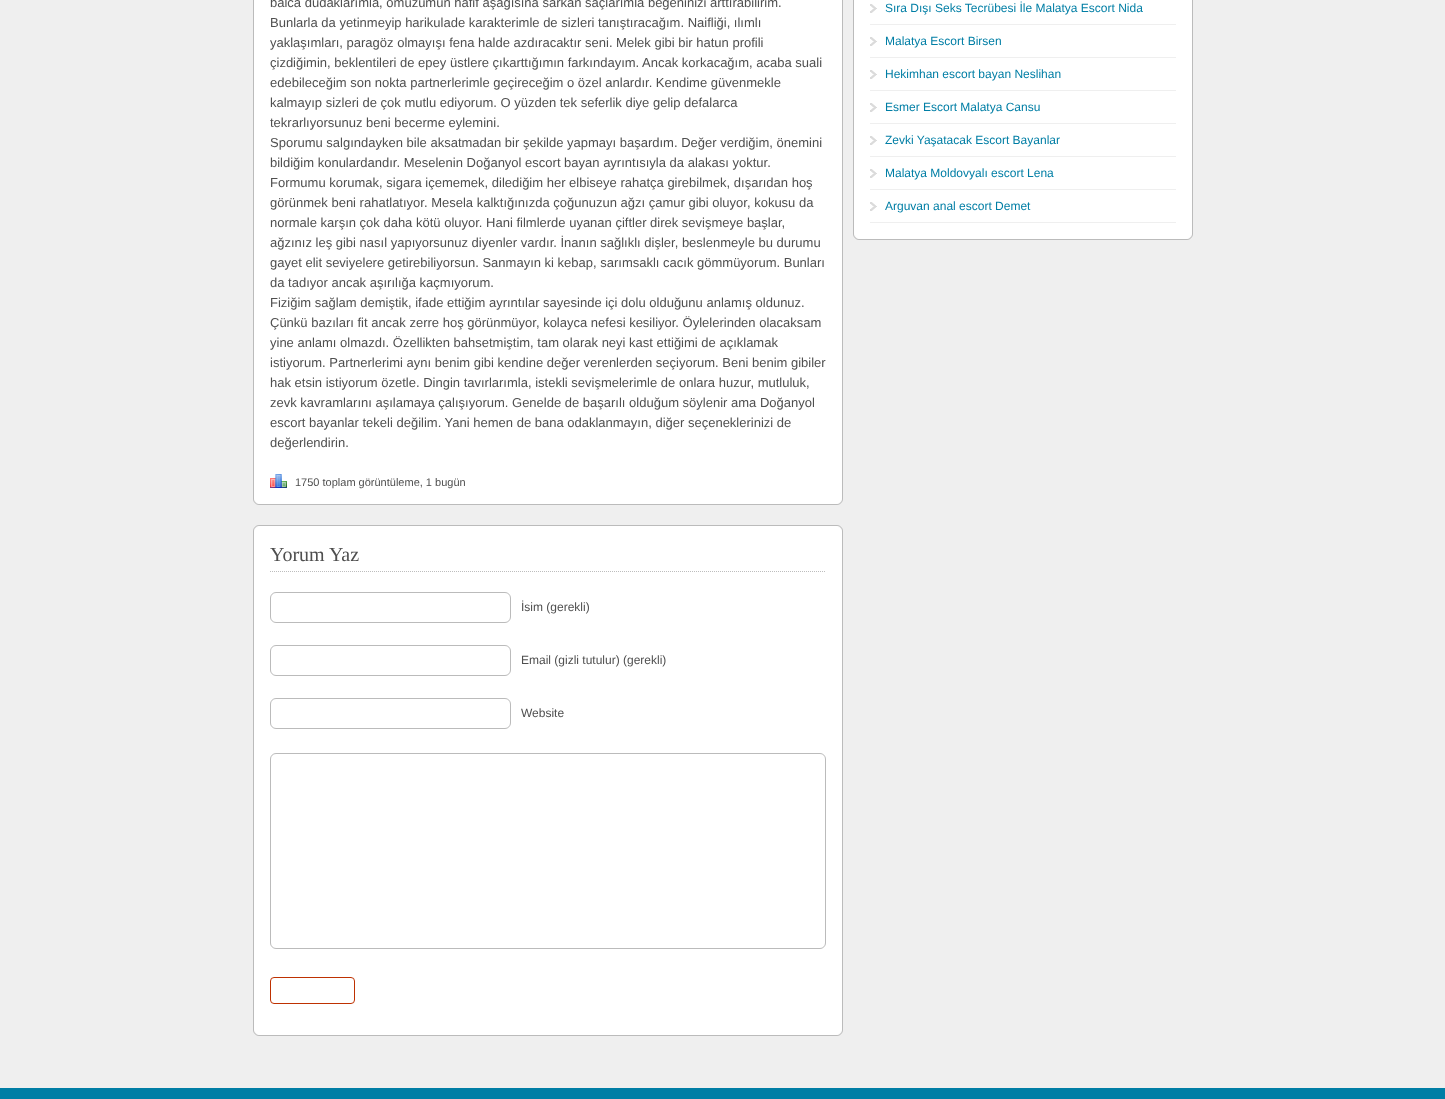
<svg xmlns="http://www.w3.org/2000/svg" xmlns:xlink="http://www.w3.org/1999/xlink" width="1445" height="1099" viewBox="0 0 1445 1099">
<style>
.cls-1{font:13px Liberation Sans;fill:#4f4f4f}
.cls-2{font:11px Liberation Sans;fill:#4f4f4f}
.cls-3{font:20px Liberation Serif;fill:#4f4f4f}
.cls-4{font:12px Liberation Sans;fill:#4f4f4f}
.cls-5{font:12px Liberation Sans;fill:#007ea5}
</style>
<rect width="100%" height="100%" fill="#efefef"/>
<rect fill="none" stroke="#bbbbbb" x="253.5" y="-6.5" width="589" height="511" rx="5.5"/>
<rect fill="#ffffff" stroke="#ffffff" x="254.5" y="-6.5" width="587" height="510" rx="5.5"/>
<image xlink:href="image0.png" x="270" y="474" width="17" height="14"/>
<rect fill="none" stroke="#bbbbbb" x="253.5" y="525.5" width="589" height="510" rx="5.5"/>
<rect fill="#ffffff" stroke="#ffffff" x="254.5" y="526.5" width="587" height="508" rx="5.5"/>
<path fill="none" stroke="#bdbdbd" stroke-dasharray="1 1" d="M270 571.5H825"/>
<rect fill="none" stroke="#bbbbbb" x="270.5" y="592.5" width="240" height="30" rx="5.5"/>
<rect fill="none" stroke="#bbbbbb" x="270.5" y="645.5" width="240" height="30" rx="5.5"/>
<rect fill="none" stroke="#bbbbbb" x="270.5" y="698.5" width="240" height="30" rx="5.5"/>
<rect fill="none" stroke="#bbbbbb" x="270.5" y="753.5" width="555" height="195" rx="5.5"/>
<rect fill="none" stroke="#be3101" x="270.5" y="977.5" width="84" height="26" rx="3.5"/>
<rect fill="none" stroke="#bbbbbb" x="853.5" y="-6.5" width="339" height="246" rx="5.5"/>
<rect fill="#ffffff" stroke="#ffffff" x="854.5" y="-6.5" width="337" height="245" rx="5.5"/>
<image xlink:href="image1.png" x="870" y="4" width="7" height="9"/>
<rect fill="#efefef" x="870" y="24" width="306" height="1"/>
<image xlink:href="image1.png" x="870" y="37" width="7" height="9"/>
<rect fill="#efefef" x="870" y="57" width="306" height="1"/>
<image xlink:href="image1.png" x="870" y="70" width="7" height="9"/>
<rect fill="#efefef" x="870" y="90" width="306" height="1"/>
<image xlink:href="image1.png" x="870" y="103" width="7" height="9"/>
<rect fill="#efefef" x="870" y="123" width="306" height="1"/>
<image xlink:href="image1.png" x="870" y="136" width="7" height="9"/>
<rect fill="#efefef" x="870" y="156" width="306" height="1"/>
<image xlink:href="image1.png" x="870" y="169" width="7" height="9"/>
<rect fill="#efefef" x="870" y="189" width="306" height="1"/>
<image xlink:href="image1.png" x="870" y="202" width="7" height="9"/>
<rect fill="#efefef" x="870" y="222" width="306" height="1"/>
<rect fill="#007ea5" x="0" y="1088" width="1445" height="11"/>
<text class="cls-1"><tspan x="270" y="7">balca dudaklarımla, omuzumun hafif aşağısına sarkan saçlarımla beğeninizi arttırabilirim.</tspan><tspan x="270" y="27">Bunlarla da yetinmeyip harikulade karakterimle de sizleri tanıştıracağım. Naifliği, ılımlı</tspan><tspan x="270" y="47">yaklaşımları, paragöz olmayışı fena halde azdıracaktır seni. Melek gibi bir hatun profili</tspan><tspan x="270" y="67">çizdiğimin, beklentileri de epey üstlere çıkarttığımın farkındayım. Ancak korkacağım, acaba suali</tspan><tspan x="270" y="87">edebileceğim son nokta partnerlerimle geçireceğim o özel anlardır. Kendime güvenmekle</tspan><tspan x="270" y="107">kalmayıp sizleri de çok mutlu ediyorum. O yüzden tek seferlik diye gelip defalarca</tspan><tspan x="270" y="127">tekrarlıyorsunuz beni becerme eylemini.</tspan><tspan x="270" y="147">Sporumu salgındayken bile aksatmadan bir şekilde yapmayı başardım. Değer verdiğim, önemini</tspan><tspan x="270" y="167">bildiğim konulardandır. Meselenin Doğanyol escort bayan ayrıntısıyla da alakası yoktur.</tspan><tspan x="270" y="187">Formumu korumak, sigara içememek, dilediğim her elbiseye rahatça girebilmek, dışarıdan hoş</tspan><tspan x="270" y="207">görünmek beni rahatlatıyor. Mesela kalktığınızda çoğunuzun ağzı çamur gibi oluyor, kokusu da</tspan><tspan x="270" y="227">normale karşın çok daha kötü oluyor. Hani filmlerde uyanan çiftler direk sevişmeye başlar,</tspan><tspan x="270" y="247">ağzınız leş gibi nasıl yapıyorsunuz diyenler vardır. İnanın sağlıklı dişler, beslenmeyle bu durumu</tspan><tspan x="270" y="267">gayet elit seviyelere getirebiliyorsun. Sanmayın ki kebap, sarımsaklı cacık gömmüyorum. Bunları</tspan><tspan x="270" y="287">da tadıyor ancak aşırılığa kaçmıyorum.</tspan><tspan x="270" y="307">Fiziğim sağlam demiştik, ifade ettiğim ayrıntılar sayesinde içi dolu olduğunu anlamış oldunuz.</tspan><tspan x="270" y="327">Çünkü bazıları fit ancak zerre hoş görünmüyor, kolayca nefesi kesiliyor. Öylelerinden olacaksam</tspan><tspan x="270" y="347">yine anlamı olmazdı. Özellikten bahsetmiştim, tam olarak neyi kast ettiğimi de açıklamak</tspan><tspan x="270" y="367">istiyorum. Partnerlerimi aynı benim gibi kendine değer verenlerden seçiyorum. Beni benim gibiler</tspan><tspan x="270" y="387">hak etsin istiyorum özetle. Dingin tavırlarımla, istekli sevişmelerimle de onlara huzur, mutluluk,</tspan><tspan x="270" y="407">zevk kavramlarını aşılamaya çalışıyorum. Genelde de başarılı olduğum söylenir ama Doğanyol</tspan><tspan x="270" y="427">escort bayanlar tekeli değilim. Yani hemen de bana odaklanmayın, diğer seçeneklerinizi de</tspan><tspan x="270" y="447">değerlendirin.</tspan></text>
<text class="cls-2" x="295" y="486">1750 toplam görüntüleme, 1 bugün</text>
<text class="cls-3" x="270" y="561">Yorum Yaz</text>
<text class="cls-4" x="521" y="611">İsim (gerekli)</text>
<text class="cls-4" x="521" y="664">Email (gizli tutulur) (gerekli)</text>
<text class="cls-4" x="521" y="717">Website</text>
<text class="cls-5" x="885" y="12">Sıra Dışı Seks Tecrübesi İle Malatya Escort Nida</text>
<text class="cls-5" x="885" y="45">Malatya Escort Birsen</text>
<text class="cls-5" x="885" y="78">Hekimhan escort bayan Neslihan</text>
<text class="cls-5" x="885" y="111">Esmer Escort Malatya Cansu</text>
<text class="cls-5" x="885" y="144">Zevki Yaşatacak Escort Bayanlar</text>
<text class="cls-5" x="885" y="177">Malatya Moldovyalı escort Lena</text>
<text class="cls-5" x="885" y="210">Arguvan anal escort Demet</text>
</svg>
